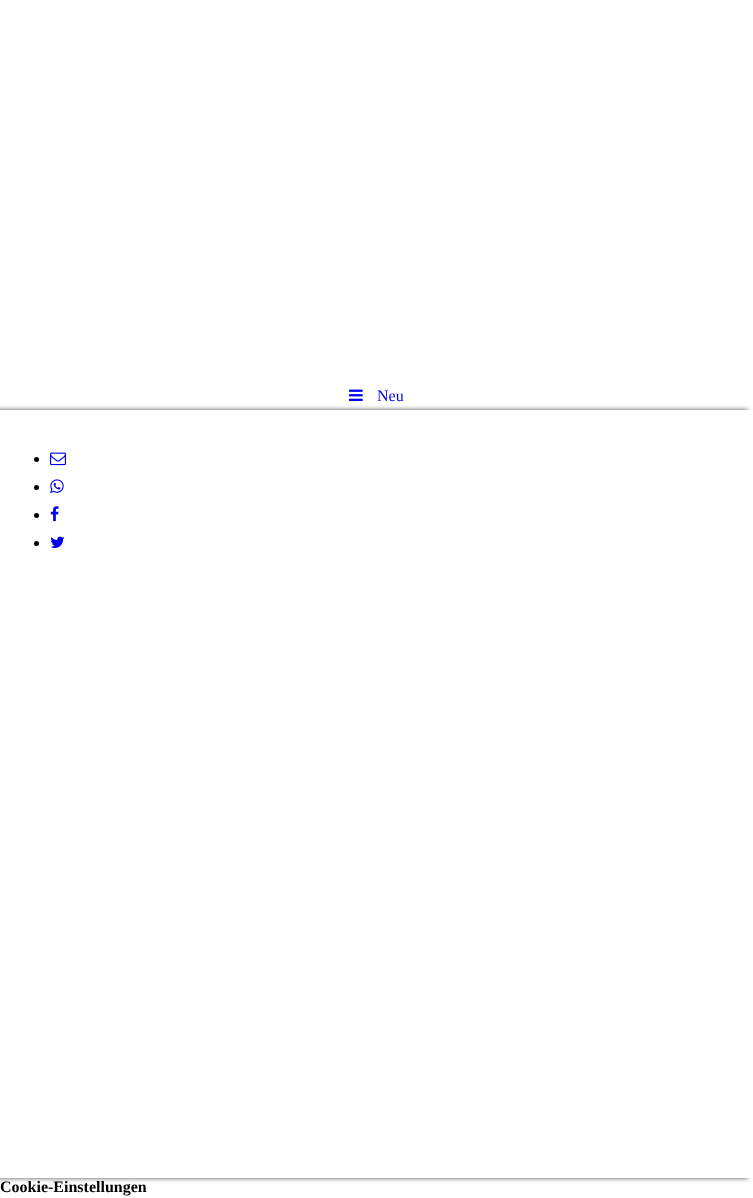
<svg xmlns="http://www.w3.org/2000/svg" xmlns:xlink="http://www.w3.org/1999/xlink" width="753" height="1198" viewBox="0 0 753 1198">
<style>
.cls-1{font:16px Liberation Serif;fill:#0000ee}
.cls-2{font:bold 16px Liberation Serif;fill:#000000}
</style>
<defs>
<clipPath id="clip1"><path d="M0 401H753V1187H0ZM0 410H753V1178H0Z" clip-rule="evenodd"/></clipPath>
</defs>
<rect width="100%" height="100%" fill="#ffffff"/>
<image xlink:href="image0.png" x="349" y="389" width="14" height="12"/>
<g clip-path="url(#clip1)">
<rect fill="#000000" fill-opacity="0.7" filter="blur(2.5px)" x="-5" y="410" width="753" height="768"/>
</g>
<circle fill="#000000" cx="36.5" cy="459.5" r="2.5"/>
<image xlink:href="image1.png" x="50" y="452" width="16" height="14"/>
<circle fill="#000000" cx="36.5" cy="487.5" r="2.5"/>
<image xlink:href="image2.png" x="50" y="479" width="14" height="15"/>
<circle fill="#000000" cx="36.5" cy="515.5" r="2.5"/>
<image xlink:href="image3.png" x="50" y="506" width="9" height="16"/>
<circle fill="#000000" cx="36.5" cy="543.5" r="2.5"/>
<image xlink:href="image4.png" x="50" y="536" width="15" height="12"/>
<text class="cls-1" x="377" y="401">Neu</text>
<text class="cls-2" x="0" y="1192">Cookie-Einstellungen</text>
</svg>
